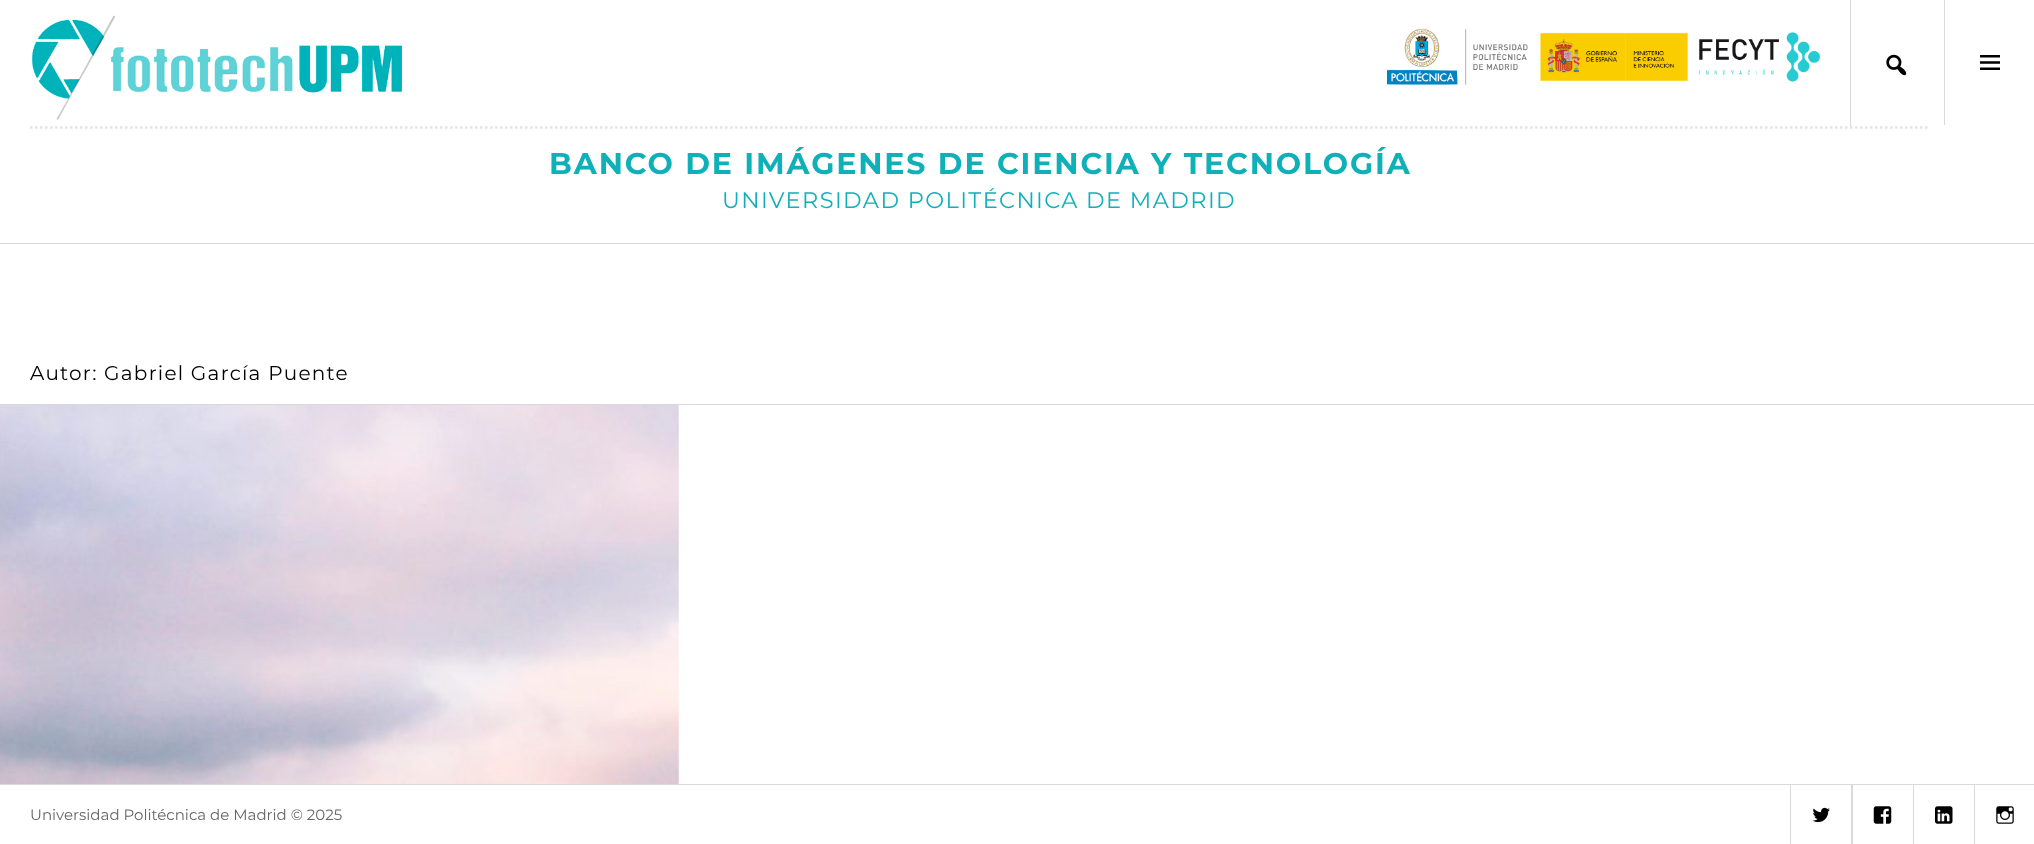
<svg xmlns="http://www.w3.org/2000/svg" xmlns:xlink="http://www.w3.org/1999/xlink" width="2034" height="844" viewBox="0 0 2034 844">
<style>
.cls-1{font:bold 30px Montserrat;letter-spacing:1.9px;fill:#10b0b8}
.cls-2{font:22.5px Montserrat;letter-spacing:1.4px;fill:#10b0b8}
.cls-3{font:20px Montserrat;letter-spacing:1.25px;fill:#000000}
.cls-4{font:15px Montserrat;fill:#666666}
</style>
<defs>
<clipPath id="clip1"><rect x="0" y="785" width="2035" height="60"/></clipPath>
</defs>
<rect width="100%" height="100%" fill="#ffffff"/>
<rect fill="#d9d9d9" x="0" y="243" width="2034" height="1"/>
<image xlink:href="image0.png" x="32" y="15" width="370" height="105"/>
<image xlink:href="image1.png" x="1387" y="28" width="434" height="57"/>
<rect fill="#d9d9d9" x="1850" y="0" width="1" height="126"/>
<image xlink:href="image2.png" x="1886" y="54" width="21" height="22"/>
<rect fill="#d9d9d9" x="1944" y="0" width="1" height="125"/>
<image xlink:href="image3.png" x="1980" y="55" width="20" height="15"/>
<path fill="none" stroke="#e4e4e4" stroke-width="2.5" stroke-dasharray="2.5 2.5" d="M30 127.5H1929"/>
<rect fill="#d9d9d9" x="0" y="404" width="2034" height="1"/>
<image xlink:href="image4.png" x="0" y="405" width="679" height="379"/>
<rect fill="#d9d9d9" x="0" y="784" width="2034" height="1"/>
<g clip-path="url(#clip1)">
<rect fill="none" stroke="#d9d9d9" x="1790.5" y="784.5" width="62" height="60"/>
</g>
<image xlink:href="image5.png" x="1812" y="807" width="18" height="16"/>
<g clip-path="url(#clip1)">
<rect fill="none" stroke="#d9d9d9" x="1851.5" y="784.5" width="62" height="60"/>
</g>
<image xlink:href="image6.png" x="1873" y="806" width="19" height="18"/>
<g clip-path="url(#clip1)">
<rect fill="none" stroke="#d9d9d9" x="1913.5" y="784.5" width="61" height="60"/>
</g>
<image xlink:href="image7.png" x="1935" y="806" width="18" height="18"/>
<image xlink:href="image8.png" x="1996" y="806" width="18" height="18"/>
<text class="cls-1" x="549" y="174">BANCO DE IMÁGENES DE CIENCIA Y TECNOLOGÍA</text>
<text class="cls-2" x="722" y="208">UNIVERSIDAD POLITÉCNICA DE MADRID</text>
<text class="cls-3" x="30" y="380">Autor: Gabriel García Puente</text>
<text class="cls-4" x="30" y="820">Universidad Politécnica de Madrid © 2025</text>
</svg>
